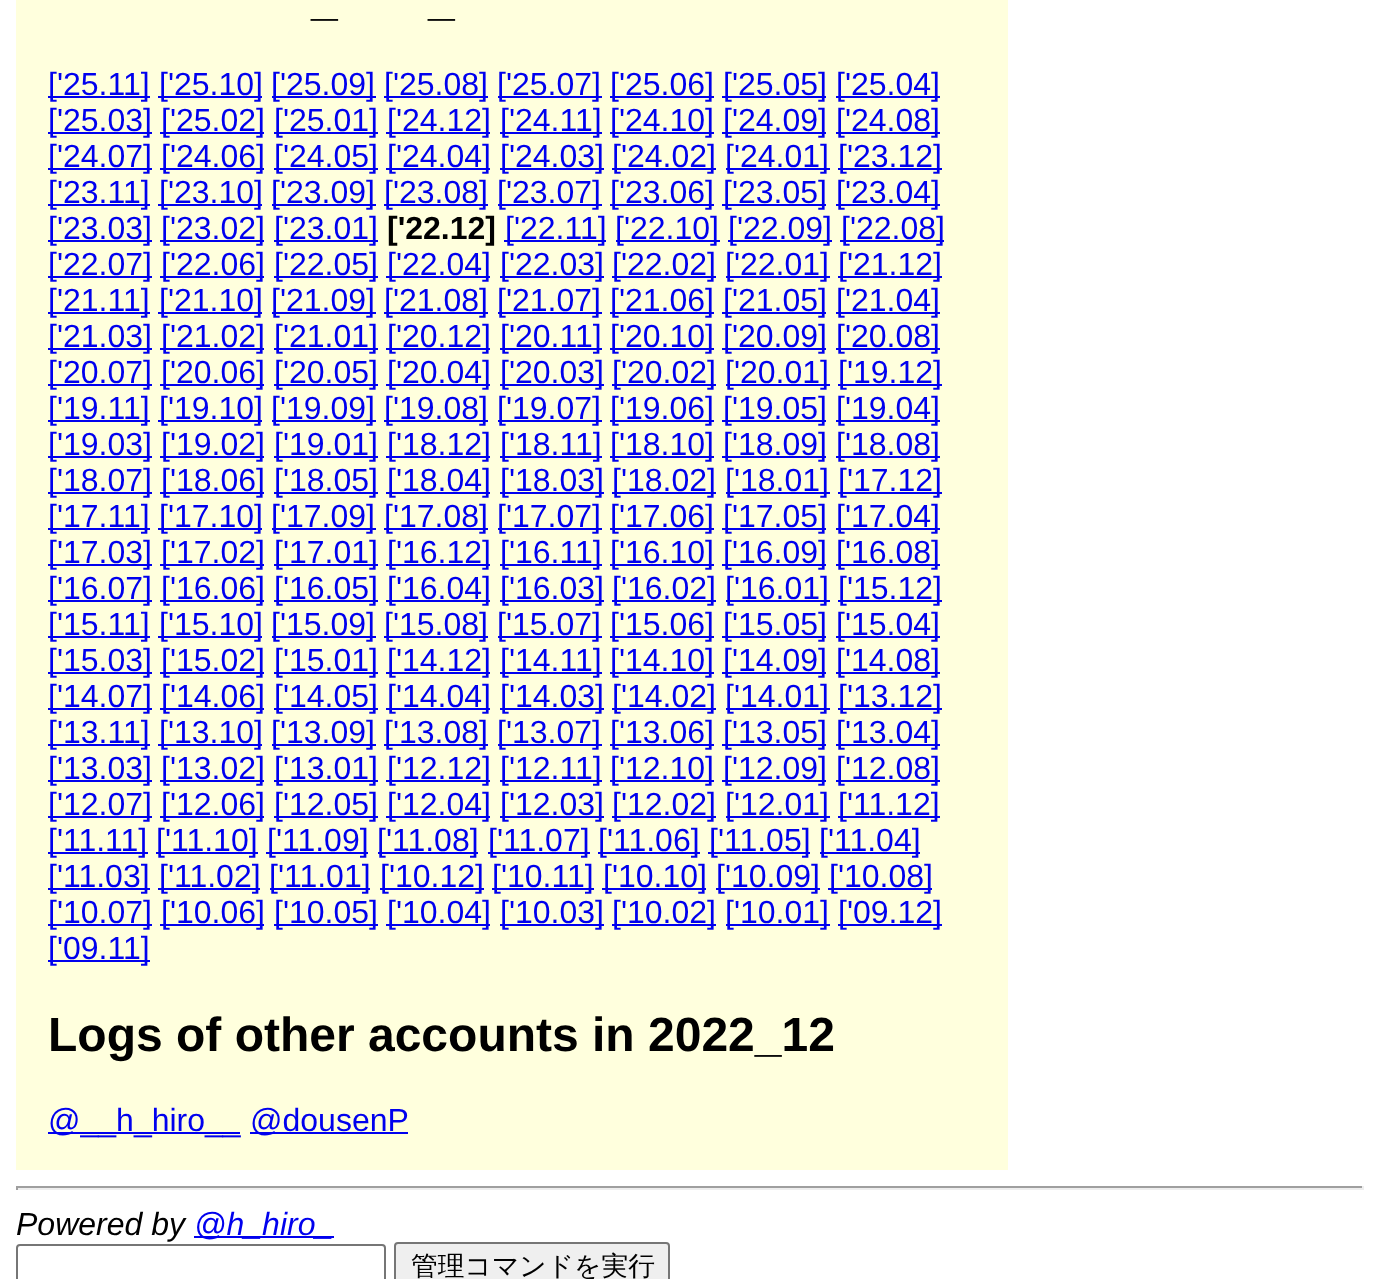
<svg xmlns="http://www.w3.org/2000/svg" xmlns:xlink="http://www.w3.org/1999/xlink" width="1380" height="1279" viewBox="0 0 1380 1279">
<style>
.cls-1{font:bold 48px Liberation Sans;fill:#000000}
.cls-2{font:32px Liberation Sans;fill:#0000ee}
.cls-3{font:bold 32px Liberation Sans;fill:#000000}
.cls-4{font:italic 32px Liberation Sans;fill:#000000}
.cls-5{font:italic 32px Liberation Sans;fill:#0000ee}
.cls-6{font:500 26.75px WenQuanYi Zen Hei;fill:#000000}
</style>
<rect width="100%" height="100%" fill="#ffffff"/>
<rect fill="#ffffdd" x="16" y="0" width="992" height="1170"/>
<rect fill="#0000ee" x="48" y="96" width="102" height="2"/>
<rect fill="#0000ee" x="158" y="96" width="104" height="2"/>
<rect fill="#0000ee" x="272" y="96" width="104" height="2"/>
<rect fill="#0000ee" x="384" y="96" width="104" height="2"/>
<rect fill="#0000ee" x="498" y="96" width="104" height="2"/>
<rect fill="#0000ee" x="610" y="96" width="104" height="2"/>
<rect fill="#0000ee" x="722" y="96" width="104" height="2"/>
<rect fill="#0000ee" x="836" y="96" width="104" height="2"/>
<rect fill="#0000ee" x="48" y="132" width="104" height="2"/>
<rect fill="#0000ee" x="160" y="132" width="104" height="2"/>
<rect fill="#0000ee" x="274" y="132" width="104" height="2"/>
<rect fill="#0000ee" x="386" y="132" width="104" height="2"/>
<rect fill="#0000ee" x="500" y="132" width="102" height="2"/>
<rect fill="#0000ee" x="610" y="132" width="104" height="2"/>
<rect fill="#0000ee" x="722" y="132" width="104" height="2"/>
<rect fill="#0000ee" x="836" y="132" width="104" height="2"/>
<rect fill="#0000ee" x="48" y="168" width="104" height="2"/>
<rect fill="#0000ee" x="160" y="168" width="104" height="2"/>
<rect fill="#0000ee" x="274" y="168" width="104" height="2"/>
<rect fill="#0000ee" x="386" y="168" width="104" height="2"/>
<rect fill="#0000ee" x="500" y="168" width="104" height="2"/>
<rect fill="#0000ee" x="612" y="168" width="104" height="2"/>
<rect fill="#0000ee" x="726" y="168" width="104" height="2"/>
<rect fill="#0000ee" x="838" y="168" width="104" height="2"/>
<rect fill="#0000ee" x="48" y="204" width="102" height="2"/>
<rect fill="#0000ee" x="158" y="204" width="104" height="2"/>
<rect fill="#0000ee" x="272" y="204" width="104" height="2"/>
<rect fill="#0000ee" x="384" y="204" width="104" height="2"/>
<rect fill="#0000ee" x="498" y="204" width="104" height="2"/>
<rect fill="#0000ee" x="610" y="204" width="104" height="2"/>
<rect fill="#0000ee" x="722" y="204" width="104" height="2"/>
<rect fill="#0000ee" x="836" y="204" width="104" height="2"/>
<rect fill="#0000ee" x="48" y="240" width="104" height="2"/>
<rect fill="#0000ee" x="160" y="240" width="104" height="2"/>
<rect fill="#0000ee" x="274" y="240" width="104" height="2"/>
<rect fill="#0000ee" x="504" y="240" width="102" height="2"/>
<rect fill="#0000ee" x="616" y="240" width="104" height="2"/>
<rect fill="#0000ee" x="728" y="240" width="104" height="2"/>
<rect fill="#0000ee" x="840" y="240" width="104" height="2"/>
<rect fill="#0000ee" x="48" y="276" width="104" height="2"/>
<rect fill="#0000ee" x="160" y="276" width="104" height="2"/>
<rect fill="#0000ee" x="274" y="276" width="104" height="2"/>
<rect fill="#0000ee" x="386" y="276" width="104" height="2"/>
<rect fill="#0000ee" x="500" y="276" width="104" height="2"/>
<rect fill="#0000ee" x="612" y="276" width="104" height="2"/>
<rect fill="#0000ee" x="726" y="276" width="104" height="2"/>
<rect fill="#0000ee" x="838" y="276" width="104" height="2"/>
<rect fill="#0000ee" x="48" y="312" width="102" height="2"/>
<rect fill="#0000ee" x="158" y="312" width="104" height="2"/>
<rect fill="#0000ee" x="272" y="312" width="104" height="2"/>
<rect fill="#0000ee" x="384" y="312" width="104" height="2"/>
<rect fill="#0000ee" x="498" y="312" width="104" height="2"/>
<rect fill="#0000ee" x="610" y="312" width="104" height="2"/>
<rect fill="#0000ee" x="722" y="312" width="104" height="2"/>
<rect fill="#0000ee" x="836" y="312" width="104" height="2"/>
<rect fill="#0000ee" x="48" y="348" width="104" height="2"/>
<rect fill="#0000ee" x="160" y="348" width="104" height="2"/>
<rect fill="#0000ee" x="274" y="348" width="104" height="2"/>
<rect fill="#0000ee" x="386" y="348" width="104" height="2"/>
<rect fill="#0000ee" x="500" y="348" width="102" height="2"/>
<rect fill="#0000ee" x="610" y="348" width="104" height="2"/>
<rect fill="#0000ee" x="722" y="348" width="104" height="2"/>
<rect fill="#0000ee" x="836" y="348" width="104" height="2"/>
<rect fill="#0000ee" x="48" y="384" width="104" height="2"/>
<rect fill="#0000ee" x="160" y="384" width="104" height="2"/>
<rect fill="#0000ee" x="274" y="384" width="104" height="2"/>
<rect fill="#0000ee" x="386" y="384" width="104" height="2"/>
<rect fill="#0000ee" x="500" y="384" width="104" height="2"/>
<rect fill="#0000ee" x="612" y="384" width="104" height="2"/>
<rect fill="#0000ee" x="726" y="384" width="104" height="2"/>
<rect fill="#0000ee" x="838" y="384" width="104" height="2"/>
<rect fill="#0000ee" x="48" y="420" width="102" height="2"/>
<rect fill="#0000ee" x="158" y="420" width="104" height="2"/>
<rect fill="#0000ee" x="272" y="420" width="104" height="2"/>
<rect fill="#0000ee" x="384" y="420" width="104" height="2"/>
<rect fill="#0000ee" x="498" y="420" width="104" height="2"/>
<rect fill="#0000ee" x="610" y="420" width="104" height="2"/>
<rect fill="#0000ee" x="722" y="420" width="104" height="2"/>
<rect fill="#0000ee" x="836" y="420" width="104" height="2"/>
<rect fill="#0000ee" x="48" y="456" width="104" height="2"/>
<rect fill="#0000ee" x="160" y="456" width="104" height="2"/>
<rect fill="#0000ee" x="274" y="456" width="104" height="2"/>
<rect fill="#0000ee" x="386" y="456" width="104" height="2"/>
<rect fill="#0000ee" x="500" y="456" width="102" height="2"/>
<rect fill="#0000ee" x="610" y="456" width="104" height="2"/>
<rect fill="#0000ee" x="722" y="456" width="104" height="2"/>
<rect fill="#0000ee" x="836" y="456" width="104" height="2"/>
<rect fill="#0000ee" x="48" y="492" width="104" height="2"/>
<rect fill="#0000ee" x="160" y="492" width="104" height="2"/>
<rect fill="#0000ee" x="274" y="492" width="104" height="2"/>
<rect fill="#0000ee" x="386" y="492" width="104" height="2"/>
<rect fill="#0000ee" x="500" y="492" width="104" height="2"/>
<rect fill="#0000ee" x="612" y="492" width="104" height="2"/>
<rect fill="#0000ee" x="726" y="492" width="104" height="2"/>
<rect fill="#0000ee" x="838" y="492" width="104" height="2"/>
<rect fill="#0000ee" x="48" y="528" width="102" height="2"/>
<rect fill="#0000ee" x="158" y="528" width="104" height="2"/>
<rect fill="#0000ee" x="272" y="528" width="104" height="2"/>
<rect fill="#0000ee" x="384" y="528" width="104" height="2"/>
<rect fill="#0000ee" x="498" y="528" width="104" height="2"/>
<rect fill="#0000ee" x="610" y="528" width="104" height="2"/>
<rect fill="#0000ee" x="722" y="528" width="104" height="2"/>
<rect fill="#0000ee" x="836" y="528" width="104" height="2"/>
<rect fill="#0000ee" x="48" y="564" width="104" height="2"/>
<rect fill="#0000ee" x="160" y="564" width="104" height="2"/>
<rect fill="#0000ee" x="274" y="564" width="104" height="2"/>
<rect fill="#0000ee" x="386" y="564" width="104" height="2"/>
<rect fill="#0000ee" x="500" y="564" width="102" height="2"/>
<rect fill="#0000ee" x="610" y="564" width="104" height="2"/>
<rect fill="#0000ee" x="722" y="564" width="104" height="2"/>
<rect fill="#0000ee" x="836" y="564" width="104" height="2"/>
<rect fill="#0000ee" x="48" y="600" width="104" height="2"/>
<rect fill="#0000ee" x="160" y="600" width="104" height="2"/>
<rect fill="#0000ee" x="274" y="600" width="104" height="2"/>
<rect fill="#0000ee" x="386" y="600" width="104" height="2"/>
<rect fill="#0000ee" x="500" y="600" width="104" height="2"/>
<rect fill="#0000ee" x="612" y="600" width="104" height="2"/>
<rect fill="#0000ee" x="726" y="600" width="104" height="2"/>
<rect fill="#0000ee" x="838" y="600" width="104" height="2"/>
<rect fill="#0000ee" x="48" y="636" width="102" height="2"/>
<rect fill="#0000ee" x="158" y="636" width="104" height="2"/>
<rect fill="#0000ee" x="272" y="636" width="104" height="2"/>
<rect fill="#0000ee" x="384" y="636" width="104" height="2"/>
<rect fill="#0000ee" x="498" y="636" width="104" height="2"/>
<rect fill="#0000ee" x="610" y="636" width="104" height="2"/>
<rect fill="#0000ee" x="722" y="636" width="104" height="2"/>
<rect fill="#0000ee" x="836" y="636" width="104" height="2"/>
<rect fill="#0000ee" x="48" y="672" width="104" height="2"/>
<rect fill="#0000ee" x="160" y="672" width="104" height="2"/>
<rect fill="#0000ee" x="274" y="672" width="104" height="2"/>
<rect fill="#0000ee" x="386" y="672" width="104" height="2"/>
<rect fill="#0000ee" x="500" y="672" width="102" height="2"/>
<rect fill="#0000ee" x="610" y="672" width="104" height="2"/>
<rect fill="#0000ee" x="722" y="672" width="104" height="2"/>
<rect fill="#0000ee" x="836" y="672" width="104" height="2"/>
<rect fill="#0000ee" x="48" y="708" width="104" height="2"/>
<rect fill="#0000ee" x="160" y="708" width="104" height="2"/>
<rect fill="#0000ee" x="274" y="708" width="104" height="2"/>
<rect fill="#0000ee" x="386" y="708" width="104" height="2"/>
<rect fill="#0000ee" x="500" y="708" width="104" height="2"/>
<rect fill="#0000ee" x="612" y="708" width="104" height="2"/>
<rect fill="#0000ee" x="726" y="708" width="104" height="2"/>
<rect fill="#0000ee" x="838" y="708" width="104" height="2"/>
<rect fill="#0000ee" x="48" y="744" width="102" height="2"/>
<rect fill="#0000ee" x="158" y="744" width="104" height="2"/>
<rect fill="#0000ee" x="272" y="744" width="104" height="2"/>
<rect fill="#0000ee" x="384" y="744" width="104" height="2"/>
<rect fill="#0000ee" x="498" y="744" width="104" height="2"/>
<rect fill="#0000ee" x="610" y="744" width="104" height="2"/>
<rect fill="#0000ee" x="722" y="744" width="104" height="2"/>
<rect fill="#0000ee" x="836" y="744" width="104" height="2"/>
<rect fill="#0000ee" x="48" y="780" width="104" height="2"/>
<rect fill="#0000ee" x="160" y="780" width="104" height="2"/>
<rect fill="#0000ee" x="274" y="780" width="104" height="2"/>
<rect fill="#0000ee" x="386" y="780" width="104" height="2"/>
<rect fill="#0000ee" x="500" y="780" width="102" height="2"/>
<rect fill="#0000ee" x="610" y="780" width="104" height="2"/>
<rect fill="#0000ee" x="722" y="780" width="104" height="2"/>
<rect fill="#0000ee" x="836" y="780" width="104" height="2"/>
<rect fill="#0000ee" x="48" y="816" width="104" height="2"/>
<rect fill="#0000ee" x="160" y="816" width="104" height="2"/>
<rect fill="#0000ee" x="274" y="816" width="104" height="2"/>
<rect fill="#0000ee" x="386" y="816" width="104" height="2"/>
<rect fill="#0000ee" x="500" y="816" width="104" height="2"/>
<rect fill="#0000ee" x="612" y="816" width="104" height="2"/>
<rect fill="#0000ee" x="726" y="816" width="104" height="2"/>
<rect fill="#0000ee" x="838" y="816" width="102" height="2"/>
<rect fill="#0000ee" x="48" y="852" width="100" height="2"/>
<rect fill="#0000ee" x="156" y="852" width="102" height="2"/>
<rect fill="#0000ee" x="266" y="852" width="102" height="2"/>
<rect fill="#0000ee" x="378" y="852" width="100" height="2"/>
<rect fill="#0000ee" x="488" y="852" width="102" height="2"/>
<rect fill="#0000ee" x="598" y="852" width="102" height="2"/>
<rect fill="#0000ee" x="708" y="852" width="102" height="2"/>
<rect fill="#0000ee" x="820" y="852" width="100" height="2"/>
<rect fill="#0000ee" x="48" y="888" width="102" height="2"/>
<rect fill="#0000ee" x="158" y="888" width="102" height="2"/>
<rect fill="#0000ee" x="270" y="888" width="100" height="2"/>
<rect fill="#0000ee" x="380" y="888" width="104" height="2"/>
<rect fill="#0000ee" x="492" y="888" width="102" height="2"/>
<rect fill="#0000ee" x="602" y="888" width="104" height="2"/>
<rect fill="#0000ee" x="716" y="888" width="104" height="2"/>
<rect fill="#0000ee" x="828" y="888" width="104" height="2"/>
<rect fill="#0000ee" x="48" y="924" width="104" height="2"/>
<rect fill="#0000ee" x="160" y="924" width="104" height="2"/>
<rect fill="#0000ee" x="274" y="924" width="104" height="2"/>
<rect fill="#0000ee" x="386" y="924" width="104" height="2"/>
<rect fill="#0000ee" x="500" y="924" width="104" height="2"/>
<rect fill="#0000ee" x="612" y="924" width="104" height="2"/>
<rect fill="#0000ee" x="726" y="924" width="104" height="2"/>
<rect fill="#0000ee" x="838" y="924" width="104" height="2"/>
<rect fill="#0000ee" x="48" y="960" width="102" height="2"/>
<rect fill="#0000ee" x="48" y="1132" width="192" height="2"/>
<rect fill="#0000ee" x="250" y="1132" width="158" height="2"/>
<rect fill="#9f9f9f" x="16" y="1186" width="1348" height="2"/>
<rect fill="#eeeeee" x="1362" y="1186" width="2" height="4"/>
<rect fill="#eeeeee" x="16" y="1188" width="1348" height="2"/>
<rect fill="#9f9f9f" x="16" y="1186" width="2" height="4"/>
<rect fill="#0000ee" x="194" y="1236" width="140" height="2"/>
<rect fill="none" stroke="#767676" stroke-width="2" x="17" y="1245" width="368" height="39" rx="3"/>
<rect fill="#efefef" stroke="#767676" stroke-width="2" x="395" y="1243" width="274" height="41" rx="3"/>
<text class="cls-1" x="311" y="15">_</text>
<text class="cls-1" x="428" y="15">_</text>
<text class="cls-2" x="48" y="95">['25.11]</text>
<text class="cls-2" x="159" y="95">['25.10]</text>
<text class="cls-2" x="271" y="95">['25.09]</text>
<text class="cls-2" x="384" y="95">['25.08]</text>
<text class="cls-2" x="497" y="95">['25.07]</text>
<text class="cls-2" x="610" y="95">['25.06]</text>
<text class="cls-2" x="723" y="95">['25.05]</text>
<text class="cls-2" x="836" y="95">['25.04]</text>
<text class="cls-2" x="48" y="131">['25.03]</text>
<text class="cls-2" x="161" y="131">['25.02]</text>
<text class="cls-2" x="274" y="131">['25.01]</text>
<text class="cls-2" x="387" y="131">['24.12]</text>
<text class="cls-2" x="500" y="131">['24.11]</text>
<text class="cls-2" x="610" y="131">['24.10]</text>
<text class="cls-2" x="723" y="131">['24.09]</text>
<text class="cls-2" x="836" y="131">['24.08]</text>
<text class="cls-2" x="48" y="167">['24.07]</text>
<text class="cls-2" x="161" y="167">['24.06]</text>
<text class="cls-2" x="274" y="167">['24.05]</text>
<text class="cls-2" x="387" y="167">['24.04]</text>
<text class="cls-2" x="500" y="167">['24.03]</text>
<text class="cls-2" x="612" y="167">['24.02]</text>
<text class="cls-2" x="725" y="167">['24.01]</text>
<text class="cls-2" x="838" y="167">['23.12]</text>
<text class="cls-2" x="48" y="203">['23.11]</text>
<text class="cls-2" x="159" y="203">['23.10]</text>
<text class="cls-2" x="271" y="203">['23.09]</text>
<text class="cls-2" x="384" y="203">['23.08]</text>
<text class="cls-2" x="497" y="203">['23.07]</text>
<text class="cls-2" x="610" y="203">['23.06]</text>
<text class="cls-2" x="723" y="203">['23.05]</text>
<text class="cls-2" x="836" y="203">['23.04]</text>
<text class="cls-2" x="48" y="239">['23.03]</text>
<text class="cls-2" x="161" y="239">['23.02]</text>
<text class="cls-2" x="274" y="239">['23.01]</text>
<text class="cls-3" x="387" y="239">['22.12]</text>
<text class="cls-2" x="505" y="239">['22.11]</text>
<text class="cls-2" x="615" y="239">['22.10]</text>
<text class="cls-2" x="728" y="239">['22.09]</text>
<text class="cls-2" x="841" y="239">['22.08]</text>
<text class="cls-2" x="48" y="275">['22.07]</text>
<text class="cls-2" x="161" y="275">['22.06]</text>
<text class="cls-2" x="274" y="275">['22.05]</text>
<text class="cls-2" x="387" y="275">['22.04]</text>
<text class="cls-2" x="500" y="275">['22.03]</text>
<text class="cls-2" x="612" y="275">['22.02]</text>
<text class="cls-2" x="725" y="275">['22.01]</text>
<text class="cls-2" x="838" y="275">['21.12]</text>
<text class="cls-2" x="48" y="311">['21.11]</text>
<text class="cls-2" x="159" y="311">['21.10]</text>
<text class="cls-2" x="271" y="311">['21.09]</text>
<text class="cls-2" x="384" y="311">['21.08]</text>
<text class="cls-2" x="497" y="311">['21.07]</text>
<text class="cls-2" x="610" y="311">['21.06]</text>
<text class="cls-2" x="723" y="311">['21.05]</text>
<text class="cls-2" x="836" y="311">['21.04]</text>
<text class="cls-2" x="48" y="347">['21.03]</text>
<text class="cls-2" x="161" y="347">['21.02]</text>
<text class="cls-2" x="274" y="347">['21.01]</text>
<text class="cls-2" x="387" y="347">['20.12]</text>
<text class="cls-2" x="500" y="347">['20.11]</text>
<text class="cls-2" x="610" y="347">['20.10]</text>
<text class="cls-2" x="723" y="347">['20.09]</text>
<text class="cls-2" x="836" y="347">['20.08]</text>
<text class="cls-2" x="48" y="383">['20.07]</text>
<text class="cls-2" x="161" y="383">['20.06]</text>
<text class="cls-2" x="274" y="383">['20.05]</text>
<text class="cls-2" x="387" y="383">['20.04]</text>
<text class="cls-2" x="500" y="383">['20.03]</text>
<text class="cls-2" x="612" y="383">['20.02]</text>
<text class="cls-2" x="725" y="383">['20.01]</text>
<text class="cls-2" x="838" y="383">['19.12]</text>
<text class="cls-2" x="48" y="419">['19.11]</text>
<text class="cls-2" x="159" y="419">['19.10]</text>
<text class="cls-2" x="271" y="419">['19.09]</text>
<text class="cls-2" x="384" y="419">['19.08]</text>
<text class="cls-2" x="497" y="419">['19.07]</text>
<text class="cls-2" x="610" y="419">['19.06]</text>
<text class="cls-2" x="723" y="419">['19.05]</text>
<text class="cls-2" x="836" y="419">['19.04]</text>
<text class="cls-2" x="48" y="455">['19.03]</text>
<text class="cls-2" x="161" y="455">['19.02]</text>
<text class="cls-2" x="274" y="455">['19.01]</text>
<text class="cls-2" x="387" y="455">['18.12]</text>
<text class="cls-2" x="500" y="455">['18.11]</text>
<text class="cls-2" x="610" y="455">['18.10]</text>
<text class="cls-2" x="723" y="455">['18.09]</text>
<text class="cls-2" x="836" y="455">['18.08]</text>
<text class="cls-2" x="48" y="491">['18.07]</text>
<text class="cls-2" x="161" y="491">['18.06]</text>
<text class="cls-2" x="274" y="491">['18.05]</text>
<text class="cls-2" x="387" y="491">['18.04]</text>
<text class="cls-2" x="500" y="491">['18.03]</text>
<text class="cls-2" x="612" y="491">['18.02]</text>
<text class="cls-2" x="725" y="491">['18.01]</text>
<text class="cls-2" x="838" y="491">['17.12]</text>
<text class="cls-2" x="48" y="527">['17.11]</text>
<text class="cls-2" x="159" y="527">['17.10]</text>
<text class="cls-2" x="271" y="527">['17.09]</text>
<text class="cls-2" x="384" y="527">['17.08]</text>
<text class="cls-2" x="497" y="527">['17.07]</text>
<text class="cls-2" x="610" y="527">['17.06]</text>
<text class="cls-2" x="723" y="527">['17.05]</text>
<text class="cls-2" x="836" y="527">['17.04]</text>
<text class="cls-2" x="48" y="563">['17.03]</text>
<text class="cls-2" x="161" y="563">['17.02]</text>
<text class="cls-2" x="274" y="563">['17.01]</text>
<text class="cls-2" x="387" y="563">['16.12]</text>
<text class="cls-2" x="500" y="563">['16.11]</text>
<text class="cls-2" x="610" y="563">['16.10]</text>
<text class="cls-2" x="723" y="563">['16.09]</text>
<text class="cls-2" x="836" y="563">['16.08]</text>
<text class="cls-2" x="48" y="599">['16.07]</text>
<text class="cls-2" x="161" y="599">['16.06]</text>
<text class="cls-2" x="274" y="599">['16.05]</text>
<text class="cls-2" x="387" y="599">['16.04]</text>
<text class="cls-2" x="500" y="599">['16.03]</text>
<text class="cls-2" x="612" y="599">['16.02]</text>
<text class="cls-2" x="725" y="599">['16.01]</text>
<text class="cls-2" x="838" y="599">['15.12]</text>
<text class="cls-2" x="48" y="635">['15.11]</text>
<text class="cls-2" x="159" y="635">['15.10]</text>
<text class="cls-2" x="271" y="635">['15.09]</text>
<text class="cls-2" x="384" y="635">['15.08]</text>
<text class="cls-2" x="497" y="635">['15.07]</text>
<text class="cls-2" x="610" y="635">['15.06]</text>
<text class="cls-2" x="723" y="635">['15.05]</text>
<text class="cls-2" x="836" y="635">['15.04]</text>
<text class="cls-2" x="48" y="671">['15.03]</text>
<text class="cls-2" x="161" y="671">['15.02]</text>
<text class="cls-2" x="274" y="671">['15.01]</text>
<text class="cls-2" x="387" y="671">['14.12]</text>
<text class="cls-2" x="500" y="671">['14.11]</text>
<text class="cls-2" x="610" y="671">['14.10]</text>
<text class="cls-2" x="723" y="671">['14.09]</text>
<text class="cls-2" x="836" y="671">['14.08]</text>
<text class="cls-2" x="48" y="707">['14.07]</text>
<text class="cls-2" x="161" y="707">['14.06]</text>
<text class="cls-2" x="274" y="707">['14.05]</text>
<text class="cls-2" x="387" y="707">['14.04]</text>
<text class="cls-2" x="500" y="707">['14.03]</text>
<text class="cls-2" x="612" y="707">['14.02]</text>
<text class="cls-2" x="725" y="707">['14.01]</text>
<text class="cls-2" x="838" y="707">['13.12]</text>
<text class="cls-2" x="48" y="743">['13.11]</text>
<text class="cls-2" x="159" y="743">['13.10]</text>
<text class="cls-2" x="271" y="743">['13.09]</text>
<text class="cls-2" x="384" y="743">['13.08]</text>
<text class="cls-2" x="497" y="743">['13.07]</text>
<text class="cls-2" x="610" y="743">['13.06]</text>
<text class="cls-2" x="723" y="743">['13.05]</text>
<text class="cls-2" x="836" y="743">['13.04]</text>
<text class="cls-2" x="48" y="779">['13.03]</text>
<text class="cls-2" x="161" y="779">['13.02]</text>
<text class="cls-2" x="274" y="779">['13.01]</text>
<text class="cls-2" x="387" y="779">['12.12]</text>
<text class="cls-2" x="500" y="779">['12.11]</text>
<text class="cls-2" x="610" y="779">['12.10]</text>
<text class="cls-2" x="723" y="779">['12.09]</text>
<text class="cls-2" x="836" y="779">['12.08]</text>
<text class="cls-2" x="48" y="815">['12.07]</text>
<text class="cls-2" x="161" y="815">['12.06]</text>
<text class="cls-2" x="274" y="815">['12.05]</text>
<text class="cls-2" x="387" y="815">['12.04]</text>
<text class="cls-2" x="500" y="815">['12.03]</text>
<text class="cls-2" x="612" y="815">['12.02]</text>
<text class="cls-2" x="725" y="815">['12.01]</text>
<text class="cls-2" x="838" y="815">['11.12]</text>
<text class="cls-2" x="48" y="851">['11.11]</text>
<text class="cls-2" x="156" y="851">['11.10]</text>
<text class="cls-2" x="267" y="851">['11.09]</text>
<text class="cls-2" x="377" y="851">['11.08]</text>
<text class="cls-2" x="488" y="851">['11.07]</text>
<text class="cls-2" x="598" y="851">['11.06]</text>
<text class="cls-2" x="709" y="851">['11.05]</text>
<text class="cls-2" x="819" y="851">['11.04]</text>
<text class="cls-2" x="48" y="887">['11.03]</text>
<text class="cls-2" x="159" y="887">['11.02]</text>
<text class="cls-2" x="269" y="887">['11.01]</text>
<text class="cls-2" x="380" y="887">['10.12]</text>
<text class="cls-2" x="492" y="887">['10.11]</text>
<text class="cls-2" x="603" y="887">['10.10]</text>
<text class="cls-2" x="716" y="887">['10.09]</text>
<text class="cls-2" x="829" y="887">['10.08]</text>
<text class="cls-2" x="48" y="923">['10.07]</text>
<text class="cls-2" x="161" y="923">['10.06]</text>
<text class="cls-2" x="274" y="923">['10.05]</text>
<text class="cls-2" x="387" y="923">['10.04]</text>
<text class="cls-2" x="500" y="923">['10.03]</text>
<text class="cls-2" x="612" y="923">['10.02]</text>
<text class="cls-2" x="725" y="923">['10.01]</text>
<text class="cls-2" x="838" y="923">['09.12]</text>
<text class="cls-2" x="48" y="959">['09.11]</text>
<text class="cls-1" x="48" y="1051">Logs of other accounts in 2022_12</text>
<text class="cls-2" x="48" y="1131">@__h_hiro__</text>
<text class="cls-2" x="250" y="1131">@dousenP</text>
<text class="cls-4" x="16" y="1235">Powered by</text>
<text class="cls-5" x="194" y="1235">@h_hiro_</text>
<text class="cls-6" x="411" y="1275">管理コマンドを実行</text>
</svg>
